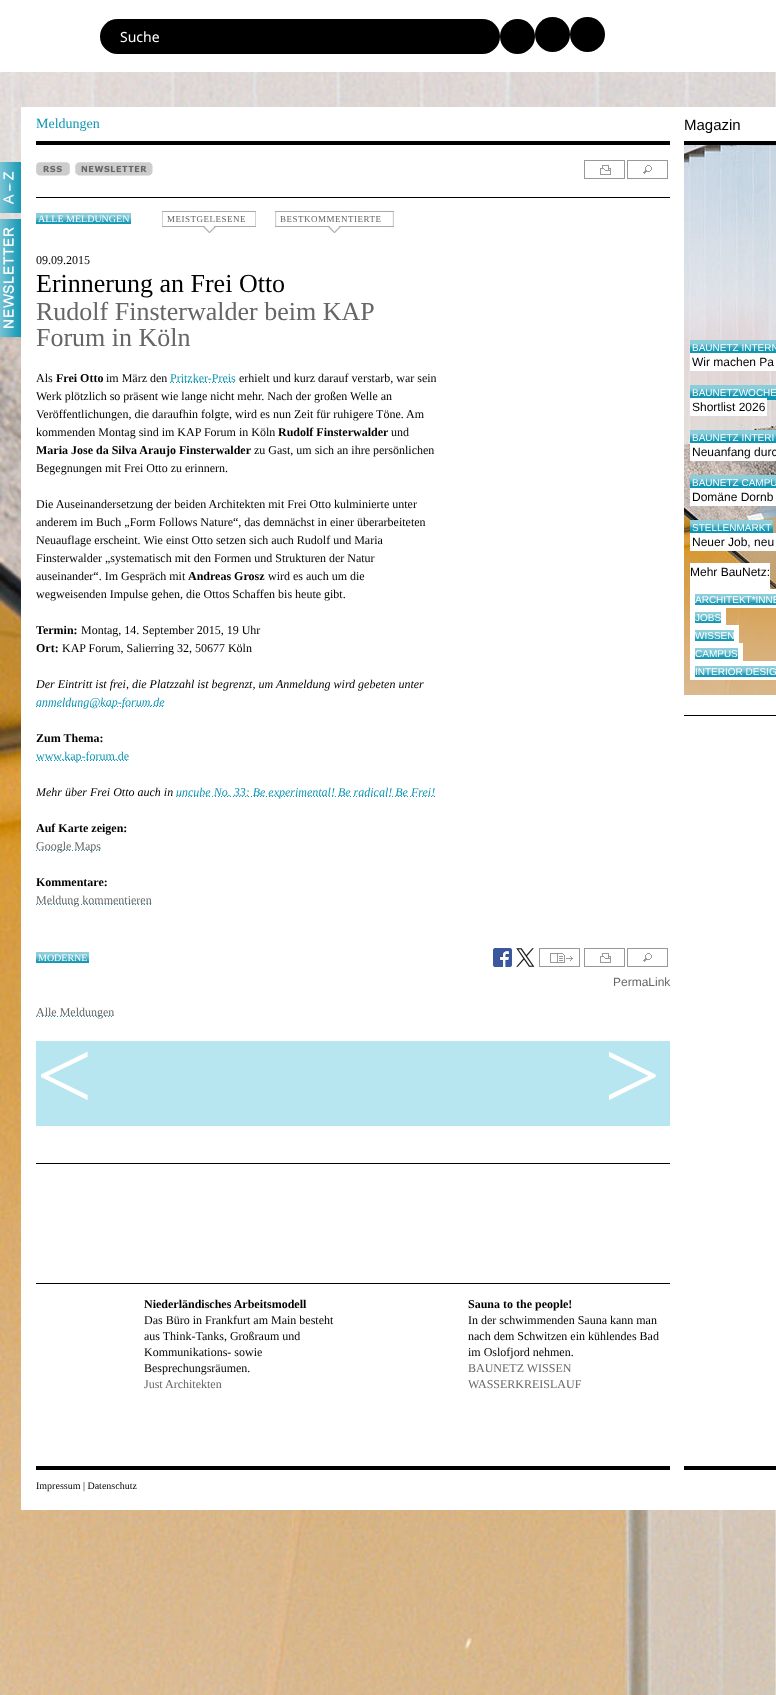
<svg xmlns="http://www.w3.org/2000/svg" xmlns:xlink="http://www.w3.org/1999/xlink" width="776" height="1695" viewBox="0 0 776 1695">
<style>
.cls-1{font:14px Noto Sans;fill:#ffffff}
.cls-2{font:14px Liberation Serif;fill:#0f96b3}
.cls-3{font:15px Liberation Sans;fill:#000000}
.cls-4{font:10px Liberation Serif;fill:#ffffff}
.cls-5{font:9px Liberation Serif;letter-spacing:0.5px;fill:#666666}
.cls-6{font:12px Liberation Serif;fill:#000000}
.cls-7{font:26px Liberation Serif;fill:#000000}
.cls-8{font:26px Liberation Serif;fill:#666666}
.cls-9{font:bold 12px Liberation Serif;fill:#000000}
.cls-10{font:12px Liberation Serif;fill:#0f96b3}
.cls-11{font:italic 12px Liberation Serif;fill:#000000}
.cls-12{font:italic 12px Liberation Serif;fill:#0f96b3}
.cls-13{font:12px Liberation Serif;fill:#666666}
.cls-14{font:12px Liberation Sans;fill:#666666}
.cls-15{font:100px Liberation Serif;fill:#ffffff}
.cls-16{font:10px Liberation Sans;fill:#ffffff}
.cls-17{font:12px Liberation Sans;fill:#000000}
.cls-18{font:10px Liberation Serif;fill:#000000}
</style>
<rect width="100%" height="100%" fill="#ffffff"/>
<image xlink:href="image0.png" x="0" y="72" width="776" height="1623"/>
<rect fill="#000000" x="100" y="19" width="400" height="35" rx="17.5"/>
<circle fill="#000000" cx="517.5" cy="36.5" r="17.5"/>
<circle fill="#000000" cx="552.5" cy="34.5" r="17.5"/>
<circle fill="#000000" cx="587.5" cy="34.5" r="17.5"/>
<rect fill="#ffffff" x="21" y="107" width="755" height="1403"/>
<rect fill="#000000" x="36" y="141" width="634" height="4"/>
<rect fill="#000000" x="684" y="141" width="92" height="4"/>
<image xlink:href="image1.png" x="0" y="162" width="21" height="51"/>
<image xlink:href="image2.png" x="0" y="219" width="21" height="118"/>
<rect fill="#000000" x="36" y="197" width="634" height="1"/>
<image xlink:href="image3.png" x="36" y="162" width="34" height="14"/>
<image xlink:href="image4.png" x="75" y="162" width="78" height="14"/>
<image xlink:href="image5.png" x="584" y="160" width="41" height="19"/>
<image xlink:href="image6.png" x="627" y="160" width="41" height="19"/>
<image xlink:href="image7.png" x="36" y="213" width="95" height="11"/>
<image xlink:href="image8.png" x="162" y="211" width="94" height="22"/>
<image xlink:href="image9.png" x="275" y="211" width="119" height="22"/>
<image xlink:href="image10.png" x="170" y="382" width="64" height="1"/>
<image xlink:href="image11.png" x="36" y="706" width="127" height="1"/>
<image xlink:href="image12.png" x="36" y="760" width="91" height="1"/>
<image xlink:href="image13.png" x="176" y="796" width="259" height="1"/>
<image xlink:href="image10.png" x="36" y="850" width="64" height="1"/>
<image xlink:href="image14.png" x="36" y="904" width="115" height="1"/>
<image xlink:href="image15.png" x="36" y="952" width="53" height="11"/>
<image xlink:href="image16.png" x="493" y="948" width="19" height="19"/>
<image xlink:href="image17.png" x="516" y="948" width="19" height="19"/>
<image xlink:href="image18.png" x="539" y="948" width="41" height="19"/>
<image xlink:href="image5.png" x="584" y="948" width="41" height="19"/>
<image xlink:href="image6.png" x="627" y="948" width="41" height="19"/>
<image xlink:href="image19.png" x="36" y="1016" width="76" height="1"/>
<rect fill="#b7e6f0" x="36" y="1041" width="634" height="85"/>
<rect fill="#000000" x="36" y="1163" width="634" height="1"/>
<rect fill="#000000" x="36" y="1283" width="634" height="1"/>
<image xlink:href="image20.png" x="684" y="145" width="92" height="550"/>
<image xlink:href="image21.png" x="690" y="340" width="86" height="11"/>
<rect fill="#0f96b3" x="690" y="351" width="86" height="2"/>
<rect fill="#ffffff" x="690" y="353" width="86" height="18"/>
<image xlink:href="image21.png" x="690" y="385" width="86" height="11"/>
<rect fill="#0f96b3" x="690" y="396" width="86" height="4"/>
<rect fill="#ffffff" x="690" y="398" width="77" height="18"/>
<image xlink:href="image21.png" x="690" y="430" width="86" height="11"/>
<rect fill="#0f96b3" x="690" y="441" width="86" height="2"/>
<rect fill="#ffffff" x="690" y="443" width="86" height="18"/>
<image xlink:href="image21.png" x="690" y="475" width="86" height="11"/>
<rect fill="#0f96b3" x="690" y="486" width="86" height="2"/>
<rect fill="#ffffff" x="690" y="488" width="86" height="18"/>
<image xlink:href="image22.png" x="690" y="520" width="83" height="11"/>
<rect fill="#0f96b3" x="690" y="531" width="83" height="2"/>
<rect fill="#ffffff" x="690" y="533" width="86" height="18"/>
<rect fill="#ffffff" x="690" y="563" width="80" height="26"/>
<image xlink:href="image23.png" x="695" y="594" width="81" height="11"/>
<rect fill="#ffffff" x="690" y="589" width="86" height="5"/>
<rect fill="#ffffff" x="690" y="605" width="86" height="3"/>
<rect fill="#ffffff" x="690" y="589" width="5" height="19"/>
<image xlink:href="image24.png" x="695" y="612" width="26" height="11"/>
<rect fill="#ffffff" x="690" y="608" width="36" height="4"/>
<rect fill="#ffffff" x="721" y="607" width="5" height="19"/>
<rect fill="#ffffff" x="690" y="623" width="36" height="2"/>
<rect fill="#ffffff" x="690" y="607" width="5" height="19"/>
<image xlink:href="image25.png" x="695" y="630" width="39" height="11"/>
<rect fill="#ffffff" x="690" y="625" width="49" height="5"/>
<rect fill="#ffffff" x="734" y="625" width="5" height="19"/>
<rect fill="#ffffff" x="690" y="641" width="49" height="2"/>
<rect fill="#ffffff" x="690" y="625" width="5" height="19"/>
<image xlink:href="image26.png" x="695" y="648" width="43" height="11"/>
<rect fill="#ffffff" x="690" y="643" width="53" height="5"/>
<rect fill="#ffffff" x="738" y="643" width="5" height="19"/>
<rect fill="#ffffff" x="690" y="659" width="53" height="2"/>
<rect fill="#ffffff" x="690" y="643" width="5" height="19"/>
<image xlink:href="image23.png" x="695" y="666" width="81" height="11"/>
<rect fill="#ffffff" x="690" y="661" width="86" height="5"/>
<rect fill="#ffffff" x="690" y="677" width="86" height="3"/>
<rect fill="#ffffff" x="690" y="661" width="5" height="19"/>
<rect fill="#000000" x="684" y="715" width="92" height="1"/>
<rect fill="#000000" x="36" y="1466" width="634" height="4"/>
<rect fill="#000000" x="684" y="1466" width="92" height="4"/>
<text class="cls-1" x="120" y="42">Suche</text>
<text class="cls-2" x="36" y="128">Meldungen</text>
<text class="cls-3" x="684" y="130">Magazin</text>
<text class="cls-4" x="38" y="222">ALLE MELDUNGEN</text>
<text class="cls-5" x="167" y="222">MEISTGELESENE</text>
<text class="cls-5" x="280" y="222">BESTKOMMENTIERTE</text>
<text class="cls-6" x="36" y="264">09.09.2015</text>
<text class="cls-7" x="36" y="292">Erinnerung an Frei Otto</text>
<text class="cls-8"><tspan x="36" y="320">Rudolf Finsterwalder beim KAP</tspan><tspan x="36" y="346">Forum in Köln</tspan></text>
<text class="cls-6" x="36" y="382">Als</text>
<text class="cls-9" x="56" y="382">Frei Otto</text>
<text class="cls-6" x="106" y="382">im März den</text>
<text class="cls-10" x="170" y="382">Pritzker-Preis</text>
<text class="cls-6" x="239" y="382">erhielt und kurz darauf verstarb, war sein</text>
<text class="cls-6"><tspan x="36" y="400">Werk plötzlich so präsent wie lange nicht mehr. Nach der großen Welle an</tspan><tspan x="36" y="418">Veröffentlichungen, die daraufhin folgte, wird es nun Zeit für ruhigere Töne. Am</tspan><tspan x="36" y="436">kommenden Montag sind im KAP Forum in Köln</tspan></text>
<text class="cls-9" x="278" y="436">Rudolf Finsterwalder</text>
<text class="cls-6" x="391" y="436">und</text>
<text class="cls-9" x="36" y="454">Maria Jose da Silva Araujo Finsterwalder</text>
<text class="cls-6" x="254" y="454">zu Gast, um sich an ihre persönlichen</text>
<text class="cls-6" x="36" y="472">Begegnungen mit Frei Otto zu erinnern.</text>
<text class="cls-6"><tspan x="36" y="508">Die Auseinandersetzung der beiden Architekten mit Frei Otto kulminierte unter</tspan><tspan x="36" y="526">anderem im Buch „Form Follows Nature“, das demnächst in einer überarbeiteten</tspan><tspan x="36" y="544">Neuauflage erscheint. Wie einst Otto setzen sich auch Rudolf und Maria</tspan><tspan x="36" y="562">Finsterwalder „systematisch mit den Formen und Strukturen der Natur</tspan><tspan x="36" y="580">auseinander“. Im Gespräch mit</tspan></text>
<text class="cls-9" x="188" y="580">Andreas Grosz</text>
<text class="cls-6" x="268" y="580">wird es auch um die</text>
<text class="cls-6" x="36" y="598">wegweisenden Impulse gehen, die Ottos Schaffen bis heute gibt.</text>
<text class="cls-9" x="36" y="634">Termin:</text>
<text class="cls-6" x="81" y="634">Montag, 14. September 2015, 19 Uhr</text>
<text class="cls-9" x="36" y="652">Ort:</text>
<text class="cls-6" x="62" y="652">KAP Forum, Salierring 32, 50677 Köln</text>
<text class="cls-11" x="36" y="688">Der Eintritt ist frei, die Platzzahl ist begrenzt, um Anmeldung wird gebeten unter</text>
<text class="cls-12" x="36" y="706">anmeldung@kap-forum.de</text>
<text class="cls-9" x="36" y="742">Zum Thema:</text>
<text class="cls-10" x="36" y="760">www.kap-forum.de</text>
<text class="cls-11" x="36" y="796">Mehr über Frei Otto auch in</text>
<text class="cls-12" x="176" y="796">uncube No. 33: Be experimental! Be radical! Be Frei!</text>
<text class="cls-9" x="36" y="832">Auf Karte zeigen:</text>
<text class="cls-13" x="36" y="850">Google Maps</text>
<text class="cls-9" x="36" y="886">Kommentare:</text>
<text class="cls-13" x="36" y="904">Meldung kommentieren</text>
<text class="cls-4" x="38" y="961">MODERNE</text>
<text class="cls-14" x="613" y="986">PermaLink</text>
<text class="cls-13" x="36" y="1016">Alle Meldungen</text>
<text class="cls-15" x="36" y="1109">&lt;</text>
<text class="cls-15" x="604" y="1109">&gt;</text>
<text class="cls-9" x="144" y="1308">Niederländisches Arbeitsmodell</text>
<text class="cls-6"><tspan x="144" y="1324">Das Büro in Frankfurt am Main besteht</tspan><tspan x="144" y="1340">aus Think-Tanks, Großraum und</tspan><tspan x="144" y="1356">Kommunikations- sowie</tspan><tspan x="144" y="1372">Besprechungsräumen.</tspan></text>
<text class="cls-13" x="144" y="1388">Just Architekten</text>
<text class="cls-9" x="468" y="1308">Sauna to the people!</text>
<text class="cls-6"><tspan x="468" y="1324">In der schwimmenden Sauna kann man</tspan><tspan x="468" y="1340">nach dem Schwitzen ein kühlendes Bad</tspan><tspan x="468" y="1356">im Oslofjord nehmen.</tspan></text>
<text class="cls-13"><tspan x="468" y="1372">BAUNETZ WISSEN</tspan><tspan x="468" y="1388">WASSERKREISLAUF</tspan></text>
<text class="cls-16" x="692" y="351">BAUNETZ INTERN</text>
<text class="cls-17" x="692" y="366">Wir machen Pa</text>
<text class="cls-16" x="692" y="396">BAUNETZWOCHE</text>
<text class="cls-17" x="692" y="411">Shortlist 2026</text>
<text class="cls-16" x="692" y="441">BAUNETZ INTERI</text>
<text class="cls-17" x="692" y="456">Neuanfang durc</text>
<text class="cls-16" x="692" y="486">BAUNETZ CAMPU</text>
<text class="cls-17" x="692" y="501">Domäne Dornb</text>
<text class="cls-16" x="692" y="531">STELLENMARKT</text>
<text class="cls-17" x="692" y="546">Neuer Job, neu</text>
<text class="cls-17" x="690" y="576">Mehr BauNetz:</text>
<text class="cls-16"><tspan x="695" y="603">ARCHITEKT*INNE</tspan><tspan x="695" y="621">JOBS</tspan><tspan x="695" y="639">WISSEN</tspan><tspan x="695" y="657">CAMPUS</tspan><tspan x="695" y="675">INTERIOR DESIG</tspan></text>
<text class="cls-18" x="36" y="1489">Impressum | Datenschutz</text>
</svg>
